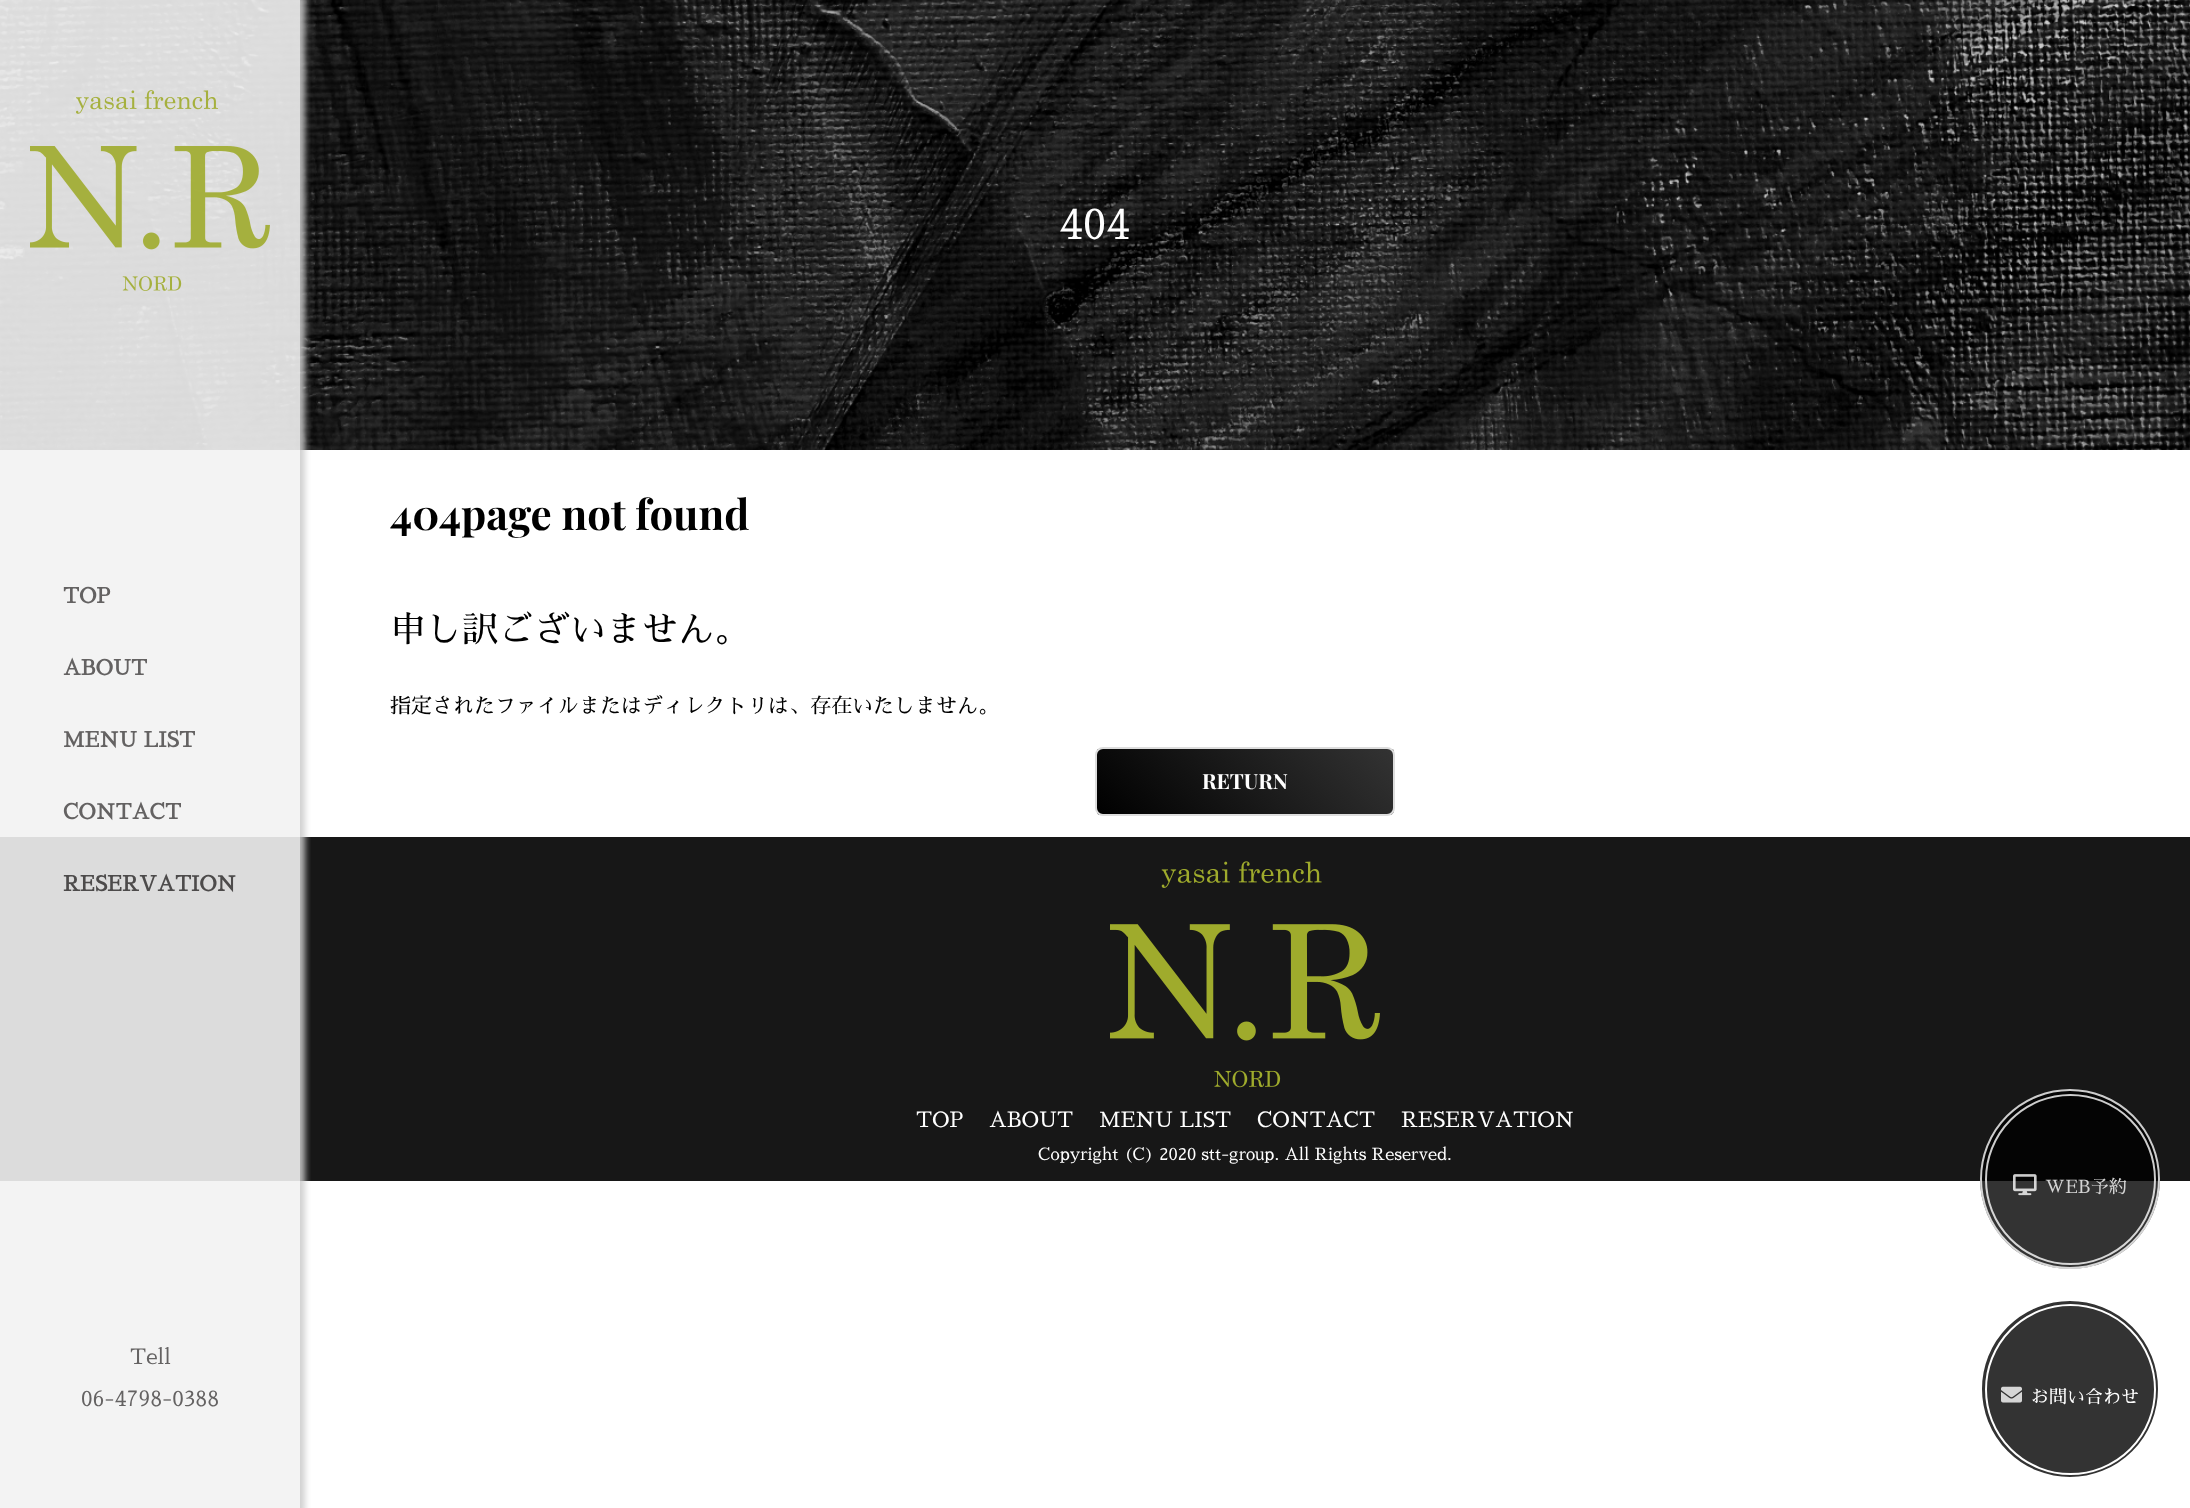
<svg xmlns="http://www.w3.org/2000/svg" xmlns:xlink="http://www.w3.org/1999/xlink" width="2190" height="1508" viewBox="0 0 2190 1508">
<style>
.cls-1{font:42px Sawarabi Mincho;fill:#ffffff}
.cls-2{font:bold 21px Sawarabi Mincho;fill:#646262}
.cls-3{font:bold 21px Sawarabi Mincho;fill:#4d4b4b}
.cls-4{font:21px Sawarabi Mincho;fill:#646262}
.cls-5{font:bold 42px Playfair Display;fill:#000000}
.cls-6{font:36px Sawarabi Mincho;fill:#000000}
.cls-7{font:21px Sawarabi Mincho;fill:#000000}
.cls-8{font:bold 21px Playfair Display;fill:#ffffff}
.cls-9{font:21px Sawarabi Mincho;fill:#ffffff}
.cls-10{font:16.8px Sawarabi Mincho;fill:#ffffff}
.cls-11{font:18px Sawarabi Mincho;fill:#d4d4d4}
.cls-12{font:18px Sawarabi Mincho;fill:#ffffff}
</style>
<defs>
<clipPath id="clip1"><rect x="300" y="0" width="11" height="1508"/></clipPath>
<clipPath id="clip2"><rect x="1095" y="747" width="300" height="69" rx="8"/></clipPath>
<linearGradient id="g1" gradientUnits="userSpaceOnUse" x1="1154" y1="872" x2="1336" y2="691"><stop offset="0" stop-color="#000000"/><stop offset="1" stop-color="#333333"/></linearGradient>
</defs>
<rect width="100%" height="100%" fill="#ffffff"/>
<image xlink:href="image0.png" x="0" y="0" width="2190" height="450"/>
<rect fill="#171717" x="0" y="837" width="2190" height="344"/>
<g clip-path="url(#clip1)">
<rect fill="#cccccc" fill-opacity="0.9" filter="blur(3px)" x="-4" y="-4" width="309" height="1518"/>
</g>
<rect fill="#f2f2f2" fill-opacity="0.9" x="0" y="0" width="300" height="1508"/>
<image xlink:href="image1.png" x="30" y="90" width="240" height="201"/>
<g clip-path="url(#clip2)">
<rect fill="url(#g1)" x="1097" y="749" width="297" height="66"/>
</g>
<rect fill="none" stroke="#dddddd" stroke-width="2" x="1096" y="748" width="298" height="67" rx="7"/>
<image xlink:href="image2.png" x="1110" y="861" width="270" height="227"/>
<circle fill="#000000" fill-opacity="0.8" cx="2070" cy="1179" r="90"/>
<circle fill="none" stroke="#ffffff" stroke-opacity="0.8" stroke-width="2" cx="2070" cy="1179" r="89"/>
<circle fill="none" stroke="#ffffff" stroke-opacity="0.8" stroke-width="2" cx="2070.5" cy="1179.5" r="84.5"/>
<image xlink:href="image3.png" x="2013" y="1174" width="24" height="22"/>
<circle fill="#333333" stroke="#ffffff" stroke-width="2" cx="2070" cy="1389" r="89"/>
<circle fill="none" stroke="#ffffff" stroke-width="2" cx="2070.5" cy="1389.5" r="84.5"/>
<image xlink:href="image4.png" x="2001" y="1386" width="21" height="17"/>
<text class="cls-1" x="1059" y="239">404</text>
<text class="cls-2" x="63" y="603">TOP</text>
<text class="cls-2" x="63" y="675">ABOUT</text>
<text class="cls-2" x="63" y="747">MENU LIST</text>
<text class="cls-2" x="63" y="819">CONTACT</text>
<text class="cls-3" x="63" y="891">RESERVATION</text>
<text class="cls-4" x="130" y="1364">Tell</text>
<text class="cls-4" x="81" y="1406">06-4798-0388</text>
<text class="cls-5" x="390" y="530">404page not found</text>
<text class="cls-6" x="390" y="642">申し訳ございません。</text>
<text class="cls-7" x="390" y="713">指定されたファイルまたはディレクトリは、存在いたしません。</text>
<text class="cls-8" x="1202" y="789">RETURN</text>
<text class="cls-9" x="916" y="1127">TOP</text>
<text class="cls-9" x="989" y="1127">ABOUT</text>
<text class="cls-9" x="1099" y="1127">MENU LIST</text>
<text class="cls-9" x="1257" y="1127">CONTACT</text>
<text class="cls-9" x="1401" y="1127">RESERVATION</text>
<text class="cls-10" x="1038" y="1160">Copyright (C) 2020 stt-group. All Rights Reserved.</text>
<text class="cls-11" x="2045" y="1193">WEB予約</text>
<text class="cls-12" x="2031" y="1403">お問い合わせ</text>
</svg>
